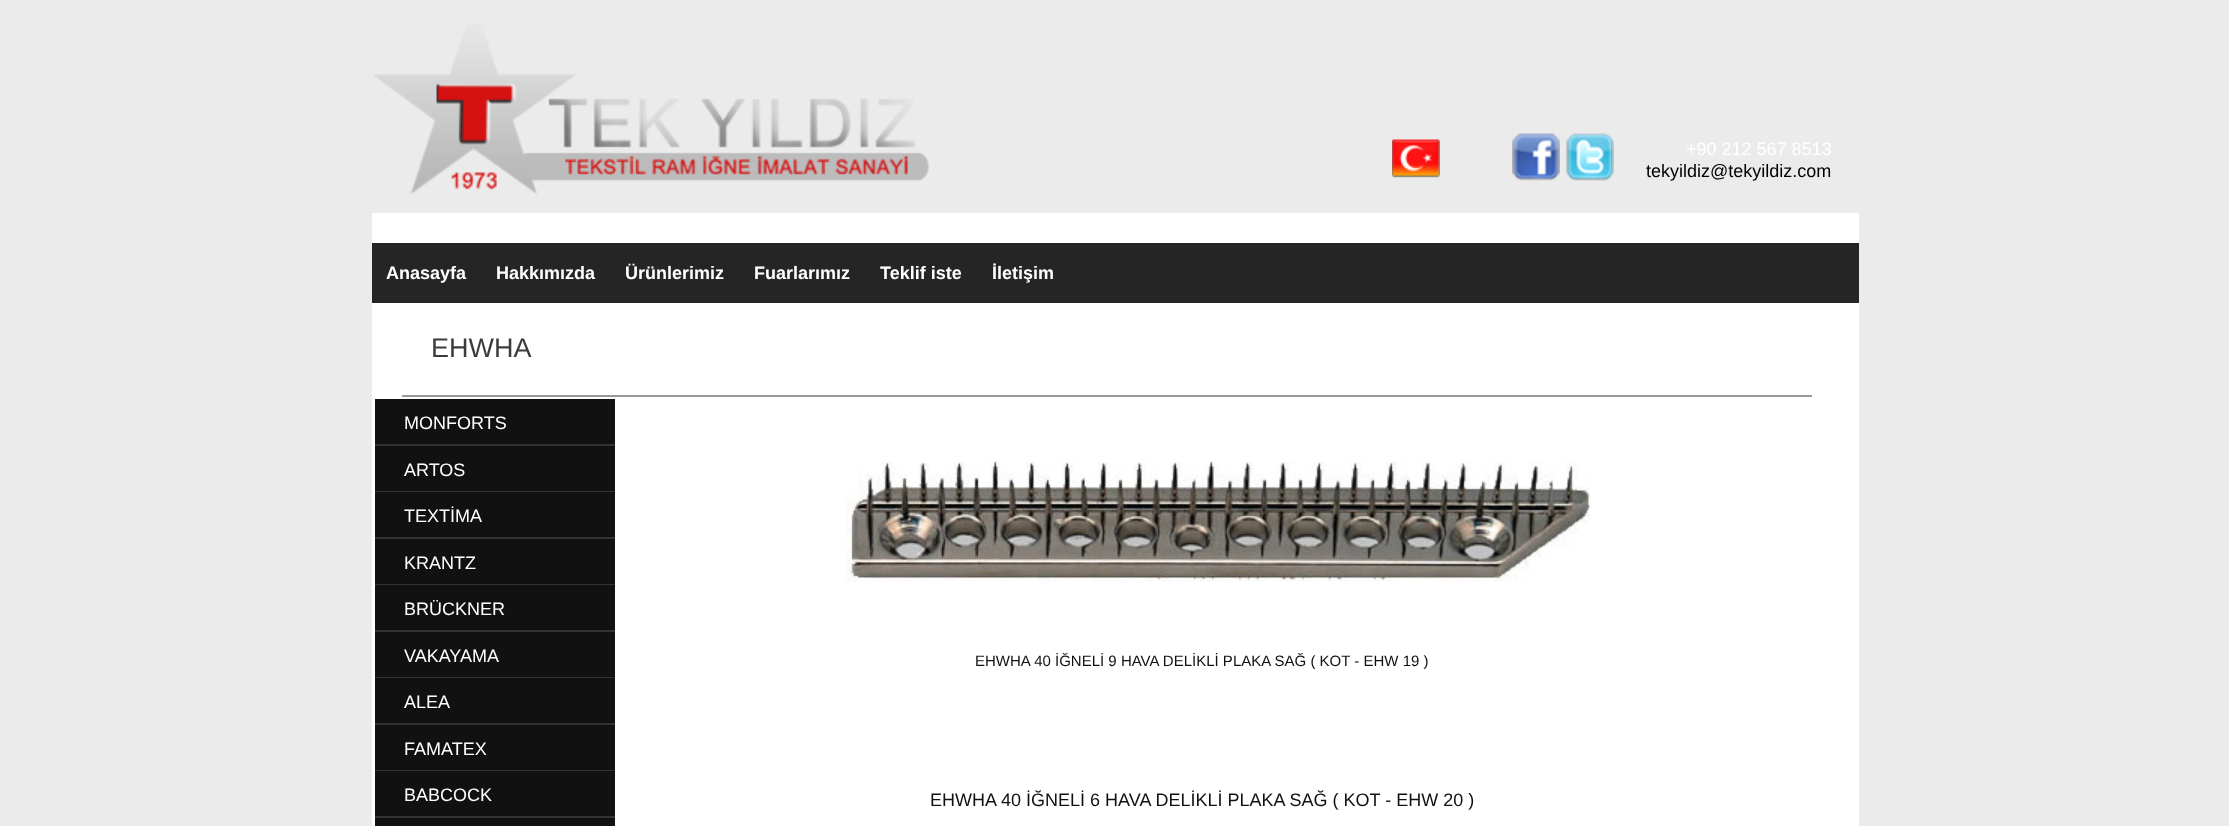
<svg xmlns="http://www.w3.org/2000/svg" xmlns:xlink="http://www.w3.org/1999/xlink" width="2229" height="826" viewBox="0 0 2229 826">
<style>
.cls-1{font:18px Liberation Sans;fill:#ffffff}
.cls-2{font:18px Liberation Sans;fill:#000000}
.cls-3{font:bold 18px Liberation Sans;fill:#ffffff}
.cls-4{font:27px Liberation Sans;fill:#3c3c3c}
.cls-5{font:15px Liberation Sans;fill:#111111}
.cls-6{font:18px Liberation Sans;fill:#111111}
</style>
<rect width="100%" height="100%" fill="#ebebeb"/>
<image xlink:href="image0.png" x="373" y="24" width="556" height="170"/>
<image xlink:href="image1.png" x="1392" y="139" width="48" height="39"/>
<image xlink:href="image2.png" x="1512" y="133" width="48" height="48"/>
<image xlink:href="image3.png" x="1566" y="133" width="48" height="48"/>
<rect fill="#252525" x="372" y="243" width="1487" height="60"/>
<rect fill="#ffffff" x="372" y="213" width="1487" height="30"/>
<rect fill="#ffffff" x="372" y="303" width="1487" height="523"/>
<rect fill="#999999" x="402" y="395" width="1410" height="2"/>
<rect fill="#111111" x="375" y="399" width="240" height="45"/>
<rect fill="#333333" x="375" y="444" width="240" height="2"/>
<rect fill="#111111" x="375" y="446" width="240" height="45"/>
<rect fill="#333333" x="375" y="491" width="240" height="1"/>
<rect fill="#111111" x="375" y="492" width="240" height="45"/>
<rect fill="#333333" x="375" y="537" width="240" height="2"/>
<rect fill="#111111" x="375" y="539" width="240" height="45"/>
<rect fill="#333333" x="375" y="584" width="240" height="1"/>
<rect fill="#111111" x="375" y="585" width="240" height="45"/>
<rect fill="#333333" x="375" y="630" width="240" height="2"/>
<rect fill="#111111" x="375" y="632" width="240" height="45"/>
<rect fill="#333333" x="375" y="677" width="240" height="1"/>
<rect fill="#111111" x="375" y="678" width="240" height="45"/>
<rect fill="#333333" x="375" y="723" width="240" height="2"/>
<rect fill="#111111" x="375" y="725" width="240" height="45"/>
<rect fill="#333333" x="375" y="770" width="240" height="1"/>
<rect fill="#111111" x="375" y="771" width="240" height="45"/>
<rect fill="#333333" x="375" y="816" width="240" height="2"/>
<rect fill="#111111" x="375" y="818" width="240" height="8"/>
<image xlink:href="image4.png" x="846" y="461" width="745" height="121"/>
<text class="cls-1" x="1686" y="155">+90 212 567 8513</text>
<text class="cls-2" x="1646" y="177">tekyildiz@tekyildiz.com</text>
<text class="cls-3" x="386" y="279">Anasayfa</text>
<text class="cls-3" x="496" y="279">Hakkımızda</text>
<text class="cls-3" x="625" y="279">Ürünlerimiz</text>
<text class="cls-3" x="754" y="279">Fuarlarımız</text>
<text class="cls-3" x="880" y="279">Teklif iste</text>
<text class="cls-3" x="992" y="279">İletişim</text>
<text class="cls-4" x="431" y="357">EHWHA</text>
<text class="cls-1" x="404" y="429">MONFORTS</text>
<text class="cls-1" x="404" y="476">ARTOS</text>
<text class="cls-1" x="404" y="522">TEXTİMA</text>
<text class="cls-1" x="404" y="569">KRANTZ</text>
<text class="cls-1" x="404" y="615">BRÜCKNER</text>
<text class="cls-1" x="404" y="662">VAKAYAMA</text>
<text class="cls-1" x="404" y="708">ALEA</text>
<text class="cls-1" x="404" y="755">FAMATEX</text>
<text class="cls-1" x="404" y="801">BABCOCK</text>
<text class="cls-5" x="975" y="666">EHWHA 40 İĞNELİ 9 HAVA DELİKLİ PLAKA SAĞ ( KOT - EHW 19 )</text>
<text class="cls-6" x="930" y="806">EHWHA 40 İĞNELİ 6 HAVA DELİKLİ PLAKA SAĞ ( KOT - EHW 20 )</text>
</svg>
